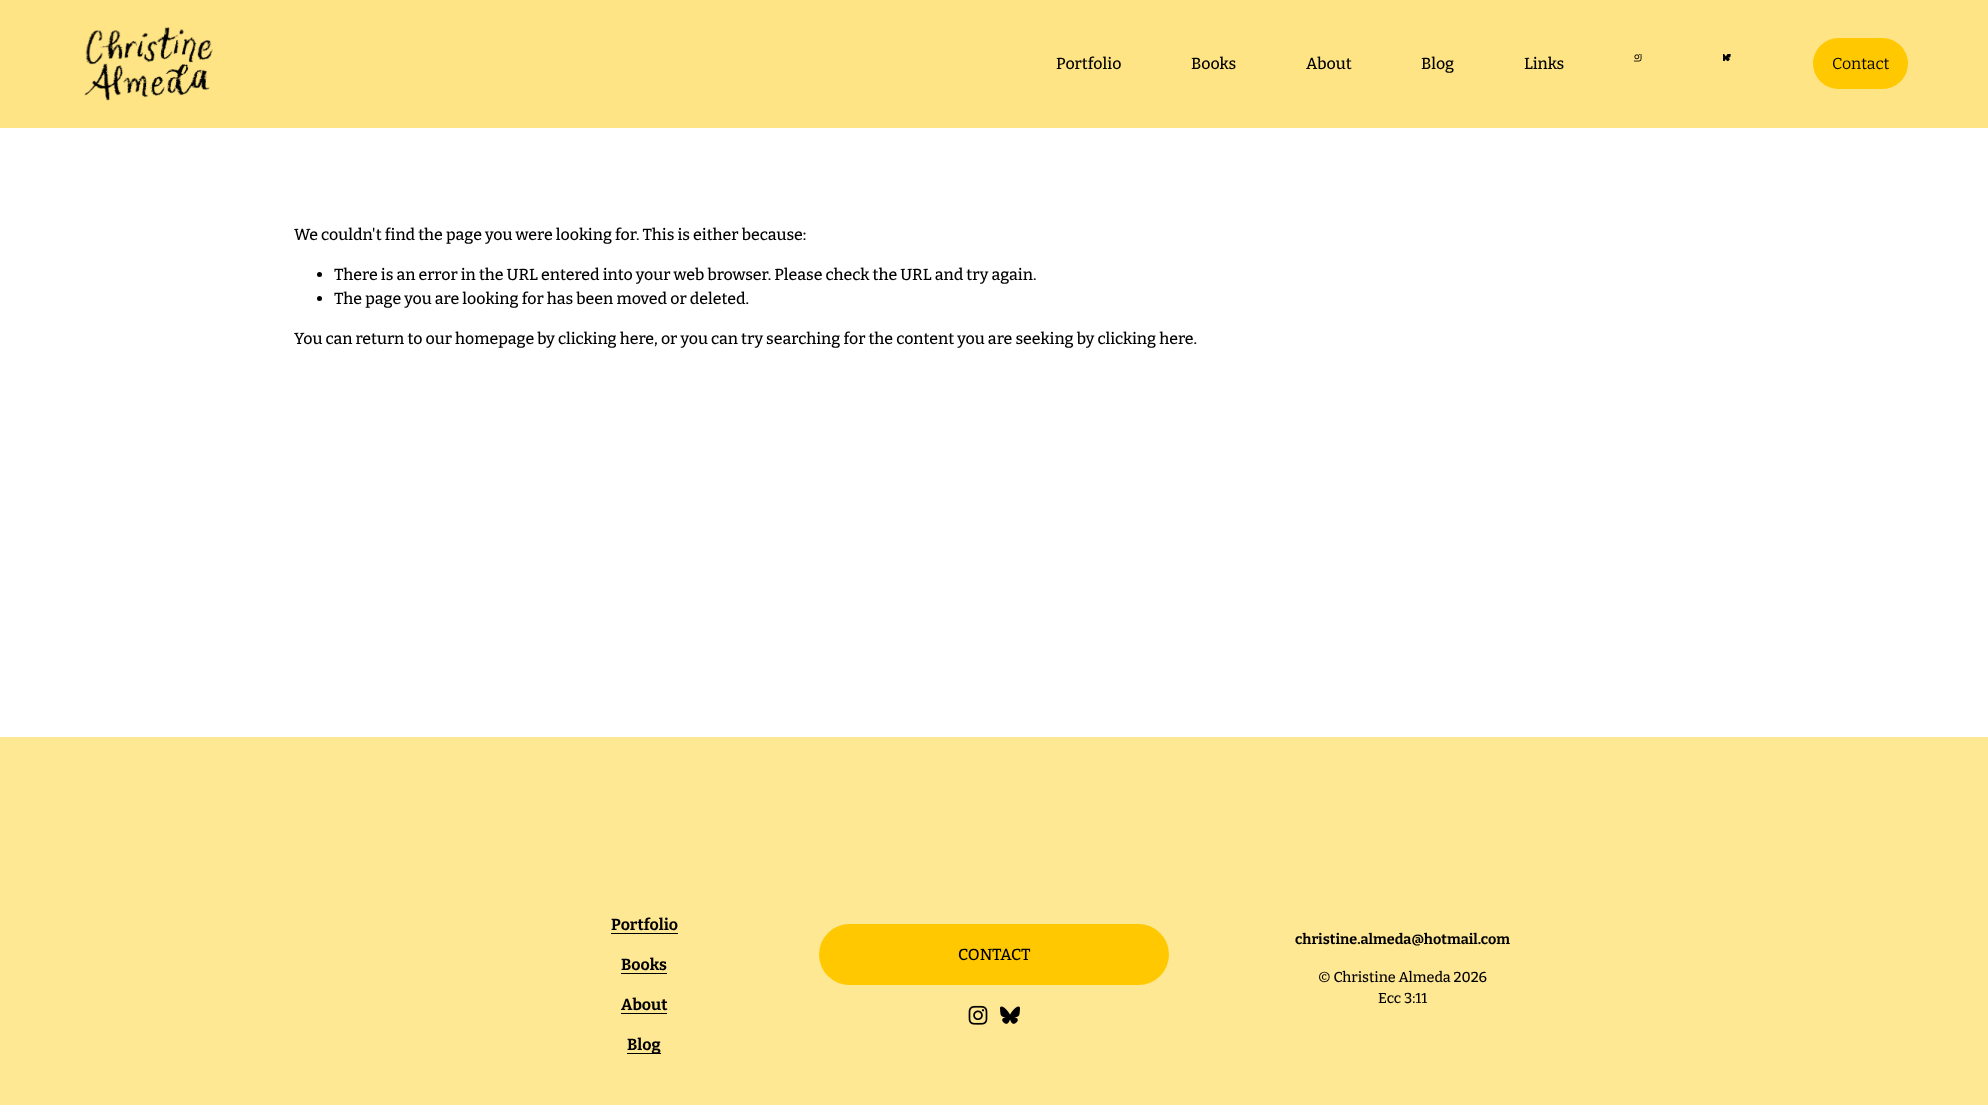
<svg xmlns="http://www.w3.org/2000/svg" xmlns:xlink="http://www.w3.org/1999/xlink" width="1988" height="1105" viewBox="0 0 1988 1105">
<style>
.cls-1{font:500 16px Bitter;fill:#000000}
.cls-2{font:16px Bitter;fill:#000000}
.cls-3{font:bold 16px Bitter;fill:#000000}
.cls-4{font:bold 14.4px Bitter;fill:#000000}
.cls-5{font:500 14.4px Bitter;fill:#000000}
</style>
<rect width="100%" height="100%" fill="#ffffff"/>
<rect fill="#ffe485" x="0" y="0" width="1988" height="128"/>
<image xlink:href="image0.png" x="84" y="27" width="133" height="74"/>
<image xlink:href="image1.png" x="1634" y="54" width="8" height="8"/>
<image xlink:href="image2.png" x="1723" y="54" width="8" height="8"/>
<rect fill="#ffc800" x="1813" y="38" width="95" height="51" rx="25.5"/>
<circle fill="#000000" cx="319.5" cy="274.5" r="2.5"/>
<circle fill="#000000" cx="319.5" cy="298.5" r="2.5"/>
<rect fill="#ffe894" x="0" y="737" width="1988" height="368"/>
<rect fill="#000000" x="611" y="933" width="67" height="1"/>
<rect fill="#000000" x="621" y="973" width="46" height="1"/>
<rect fill="#000000" x="621" y="1013" width="46" height="1"/>
<rect fill="#000000" x="627" y="1053" width="34" height="1"/>
<rect fill="#ffc800" x="819" y="924" width="350" height="61" rx="30.5"/>
<image xlink:href="image3.png" x="968" y="1005" width="20" height="20"/>
<image xlink:href="image4.png" x="1000" y="1006" width="20" height="18"/>
<text class="cls-1" x="1056" y="69">Portfolio</text>
<text class="cls-1" x="1191" y="69">Books</text>
<text class="cls-1" x="1306" y="69">About</text>
<text class="cls-1" x="1421" y="69">Blog</text>
<text class="cls-1" x="1524" y="69">Links</text>
<text class="cls-2" x="1832" y="69">Contact</text>
<text class="cls-1" x="294" y="240">We couldn't find the page you were looking for. This is either because:</text>
<text class="cls-1"><tspan x="334" y="280">There is an error in the URL entered into your web browser. Please check the URL and try again.</tspan><tspan x="334" y="304">The page you are looking for has been moved or deleted.</tspan></text>
<text class="cls-1" x="294" y="344">You can return to our homepage by clicking here, or you can try searching for the content you are seeking by clicking here.</text>
<text class="cls-3" x="611" y="930">Portfolio</text>
<text class="cls-3" x="621" y="970">Books</text>
<text class="cls-3" x="621" y="1010">About</text>
<text class="cls-3" x="627" y="1050">Blog</text>
<text class="cls-1" x="958" y="960">CONTACT</text>
<text class="cls-4" x="1295" y="944">christine.almeda@hotmail.com</text>
<text class="cls-5" x="1318" y="982">© Christine Almeda 2026</text>
<text class="cls-5" x="1378" y="1003">Ecc 3:11</text>
</svg>
